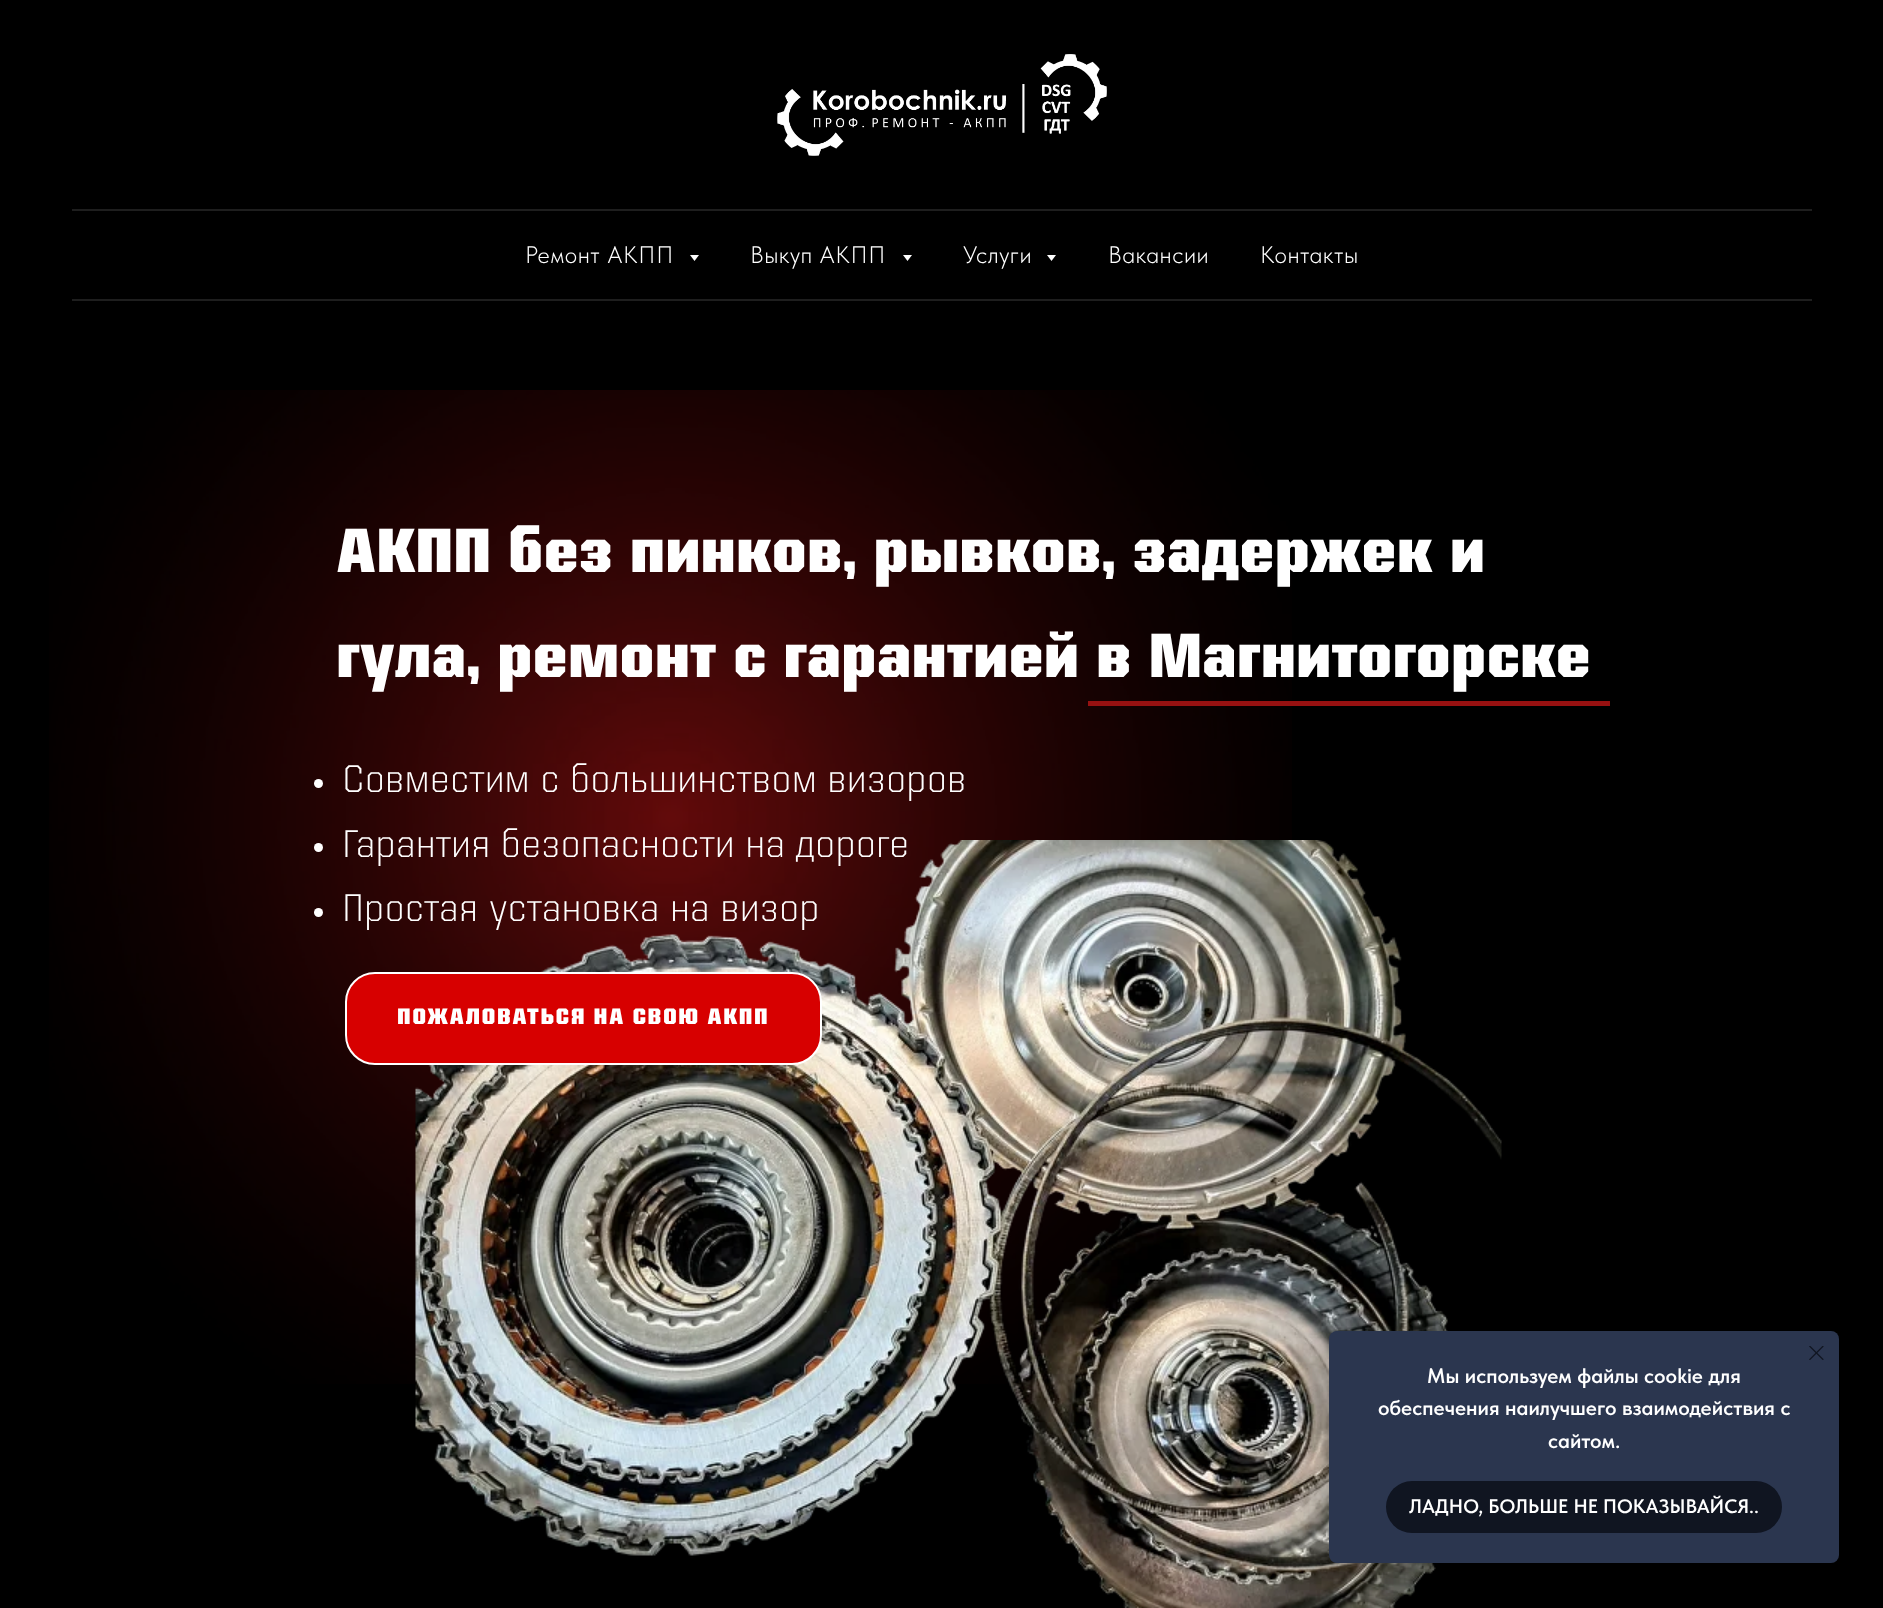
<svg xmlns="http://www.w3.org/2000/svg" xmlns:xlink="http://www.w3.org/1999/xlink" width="1883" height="1608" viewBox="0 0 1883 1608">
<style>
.cls-1{font:300 24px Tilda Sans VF;letter-spacing:0.75px;fill:#ffffff}
.cls-2{font:800 58.5px 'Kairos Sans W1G';fill:#ffffff}
.cls-3{font:300 36px 'Kairos Sans W1G';fill:#ffffff}
.cls-4{font:800 21px 'Kairos Sans W1G';letter-spacing:1.5px;fill:#ffffff}
.cls-5{font:600 21px Tilda Sans VF;fill:#ffffff}
.cls-6{font:600 19.5px Tilda Sans VF;fill:#ffffff}
</style>
<rect width="100%" height="100%" fill="#000000"/>
<image xlink:href="image0.png" x="777" y="54" width="330" height="102"/>
<rect fill="#1e1e1e" x="72" y="209" width="1740" height="2"/>
<path fill="#ffffff" d="M690 255H699L694.5 261Z"/>
<path fill="#ffffff" d="M903 255H912L907.5 261Z"/>
<path fill="#ffffff" d="M1047 255H1056L1051.5 261Z"/>
<rect fill="#1e1e1e" x="72" y="299" width="1740" height="2"/>
<image xlink:href="image1.png" x="49" y="390" width="1243" height="994"/>
<rect fill="#971111" x="1088" y="701" width="522" height="5"/>
<circle fill="#ffffff" cx="318.5" cy="783.5" r="4.5"/>
<circle fill="#ffffff" cx="318.5" cy="847.5" r="4.5"/>
<image xlink:href="image2.png" x="415" y="840" width="1087" height="768"/>
<circle fill="#ffffff" cx="318.5" cy="912.5" r="4.5"/>
<rect fill="#d70000" stroke="#ffffff" stroke-width="2" x="346" y="973" width="475" height="91" rx="29"/>
<rect fill="#000000" fill-opacity="0.3" filter="blur(15px)" x="1329" y="1331" width="510" height="232" rx="8"/>
<rect fill="#2b364f" x="1329" y="1331" width="510" height="232" rx="8"/>
<image xlink:href="image3.png" x="1809" y="1346" width="15" height="14"/>
<rect fill="#101521" x="1386" y="1481" width="396" height="52" rx="26"/>
<text class="cls-1" x="525" y="263">Ремонт АКПП</text>
<text class="cls-1" x="750" y="263">Выкуп АКПП</text>
<text class="cls-1" x="963" y="263">Услуги</text>
<text class="cls-1" x="1108" y="263">Вакансии</text>
<text class="cls-1" x="1260" y="263">Контакты</text>
<text class="cls-2"><tspan x="336" y="572">АКПП без пинков, рывков, задержек и</tspan><tspan x="336" y="677">гула, ремонт с гарантией в Магнитогорске</tspan></text>
<text class="cls-3"><tspan x="342" y="792">Совместим с большинством визоров</tspan><tspan x="342" y="857">Гарантия безопасности на дороге</tspan><tspan x="342" y="921">Простая установка на визор</tspan></text>
<text class="cls-4" x="397" y="1024">ПОЖАЛОВАТЬСЯ НА СВОЮ АКПП</text>
<text class="cls-5" x="1427" y="1383">Мы используем файлы cookie для</text>
<text class="cls-5" x="1378" y="1415">обеспечения наилучшего взаимодействия с</text>
<text class="cls-5" x="1548" y="1448">сайтом.</text>
<text class="cls-6" x="1409" y="1513">ЛАДНО, БОЛЬШЕ НЕ ПОКАЗЫВАЙСЯ..</text>
</svg>
